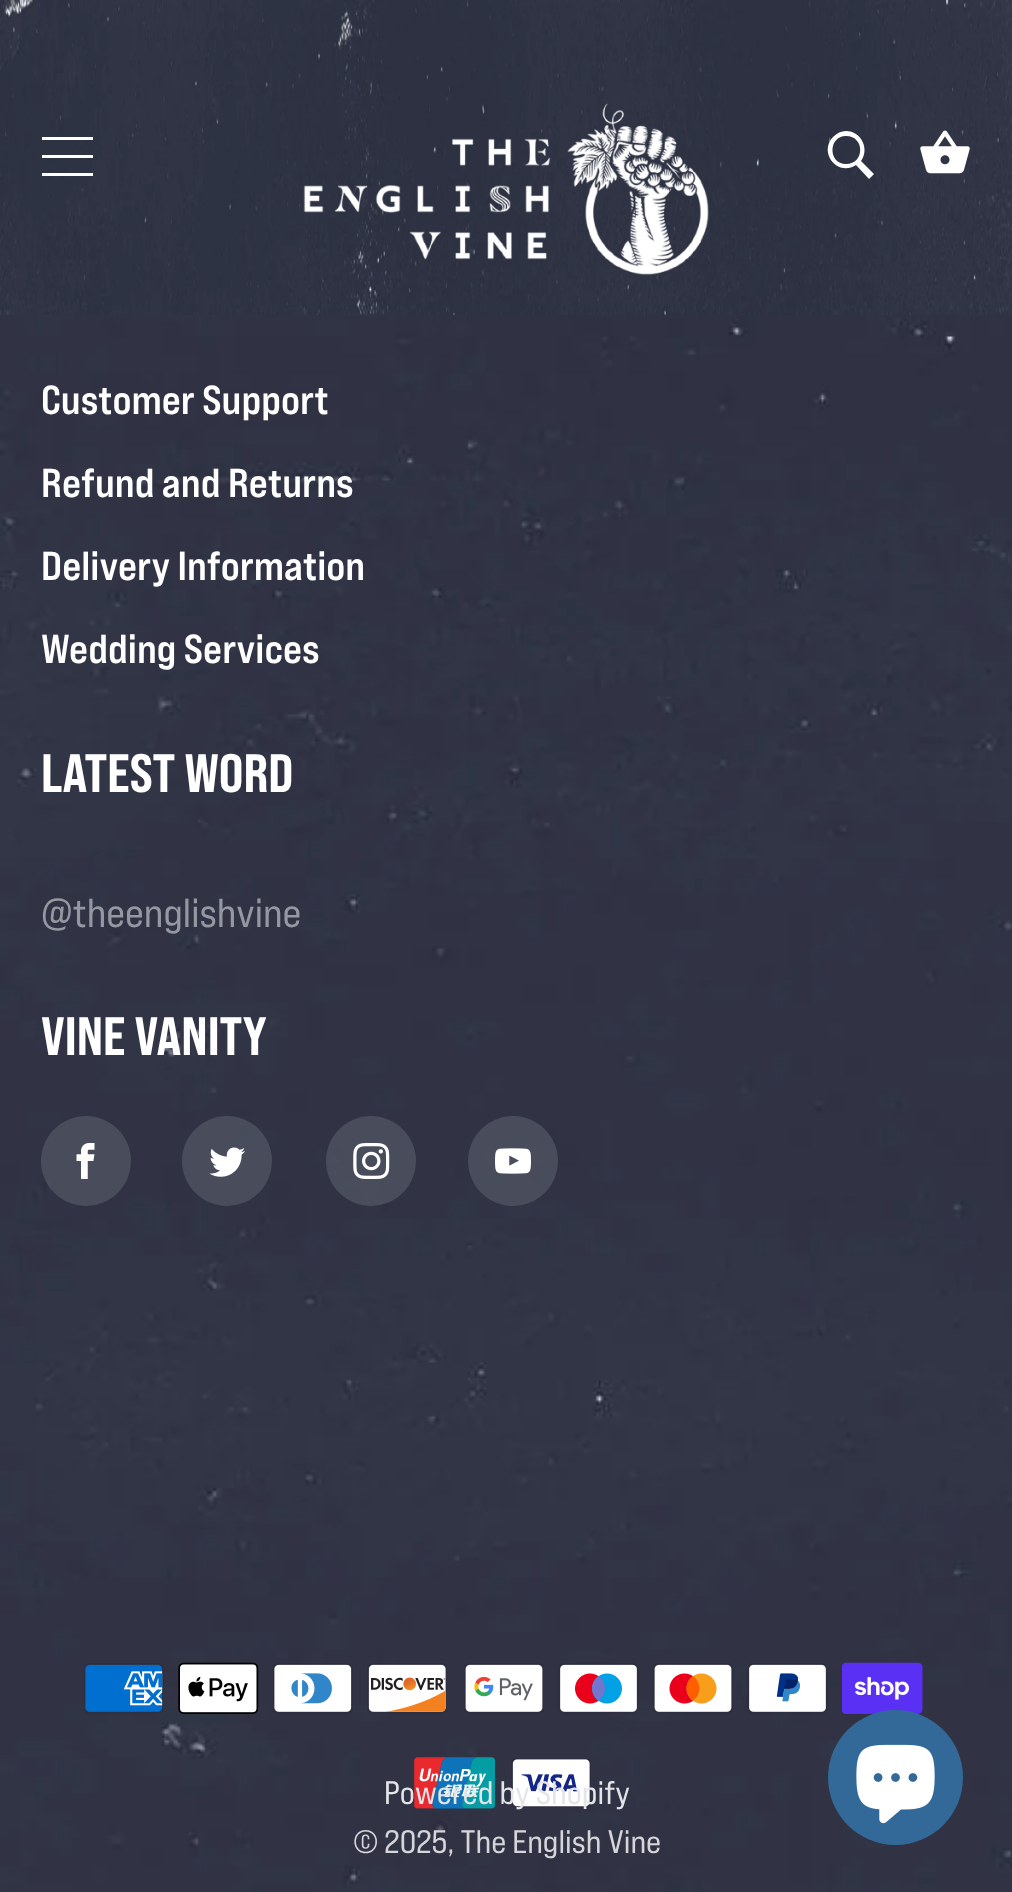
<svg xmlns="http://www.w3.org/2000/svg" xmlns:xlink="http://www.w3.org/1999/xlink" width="1012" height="1892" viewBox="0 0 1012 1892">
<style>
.cls-1{font:bold 40.5px Bebas Neue;fill:#ffffff}
.cls-2{font:800 54px Bebas Neue;fill:#ffffff}
.cls-3{font:40.5px Bebas Neue;fill:#9698a1}
.cls-4{font:32.5px Bebas Neue;fill:#e4e5e9}
.cls-5{font:32.5px Bebas Neue;fill:#d6d6da}
</style>
<rect width="100%" height="100%" fill="#ffffff"/>
<image xlink:href="image3.png" x="0" y="314" width="1012" height="1578"/>
<image xlink:href="image0.png" x="0" y="0" width="1012" height="315"/>
<path fill="#ffffff" d="M42 140H93V137H42ZM42 176H93V173H42ZM42 158H93V155H42Z"/>
<image xlink:href="image1.png" x="303" y="103" width="406" height="172"/>
<path fill="#ffffff" d="M846 131C841 131 837 133 833 137C818 153 838 177 856 165L869 179L874 174L861 161C870 149 861 131 846 131ZM846 136C865 136 865 164 846 164C828 164 828 136 846 136Z"/>
<image xlink:href="image2.png" x="920" y="130" width="50" height="44"/>
<circle fill="#626572" fill-opacity="0.5" cx="86" cy="1161" r="45"/>
<image xlink:href="image4.png" x="76" y="1143" width="19" height="36"/>
<circle fill="#626572" fill-opacity="0.5" cx="227" cy="1161" r="45"/>
<image xlink:href="image5.png" x="209" y="1147" width="37" height="30"/>
<circle fill="#626572" fill-opacity="0.5" cx="371" cy="1161" r="45"/>
<image xlink:href="image6.png" x="353" y="1143" width="37" height="36"/>
<circle fill="#626572" fill-opacity="0.5" cx="513" cy="1161" r="45"/>
<image xlink:href="image7.png" x="495" y="1148" width="36" height="26"/>
<image xlink:href="image8.png" x="84" y="1663" width="80" height="51"/>
<image xlink:href="image9.png" x="178" y="1662" width="81" height="52"/>
<image xlink:href="image10.png" x="273" y="1663" width="80" height="51"/>
<image xlink:href="image11.png" x="367" y="1663" width="80" height="51"/>
<image xlink:href="image12.png" x="464" y="1663" width="80" height="51"/>
<image xlink:href="image13.png" x="558" y="1663" width="81" height="51"/>
<image xlink:href="image14.png" x="653" y="1663" width="80" height="51"/>
<image xlink:href="image15.png" x="747" y="1663" width="81" height="51"/>
<image xlink:href="image16.png" x="842" y="1662" width="81" height="52"/>
<image xlink:href="image17.png" x="414" y="1757" width="81" height="52"/>
<image xlink:href="image18.png" x="511" y="1758" width="80" height="50"/>
<circle fill="#326999" cx="895.5" cy="1777.5" r="67.5"/>
<image xlink:href="image19.png" x="856" y="1744" width="79" height="80"/>
<text class="cls-1" x="41" y="414">Customer Support</text>
<text class="cls-1" x="41" y="497">Refund and Returns</text>
<text class="cls-1" x="41" y="580">Delivery Information</text>
<text class="cls-1" x="41" y="663">Wedding Services</text>
<text class="cls-2" x="41" y="792">LATEST WORD</text>
<text class="cls-3" x="41" y="927">@theenglishvine</text>
<text class="cls-2" x="41" y="1055">VINE VANITY</text>
<text class="cls-4" x="384" y="1804">Powered by Shopify</text>
<text class="cls-5" x="353" y="1853">© 2025, The English Vine</text>
</svg>
